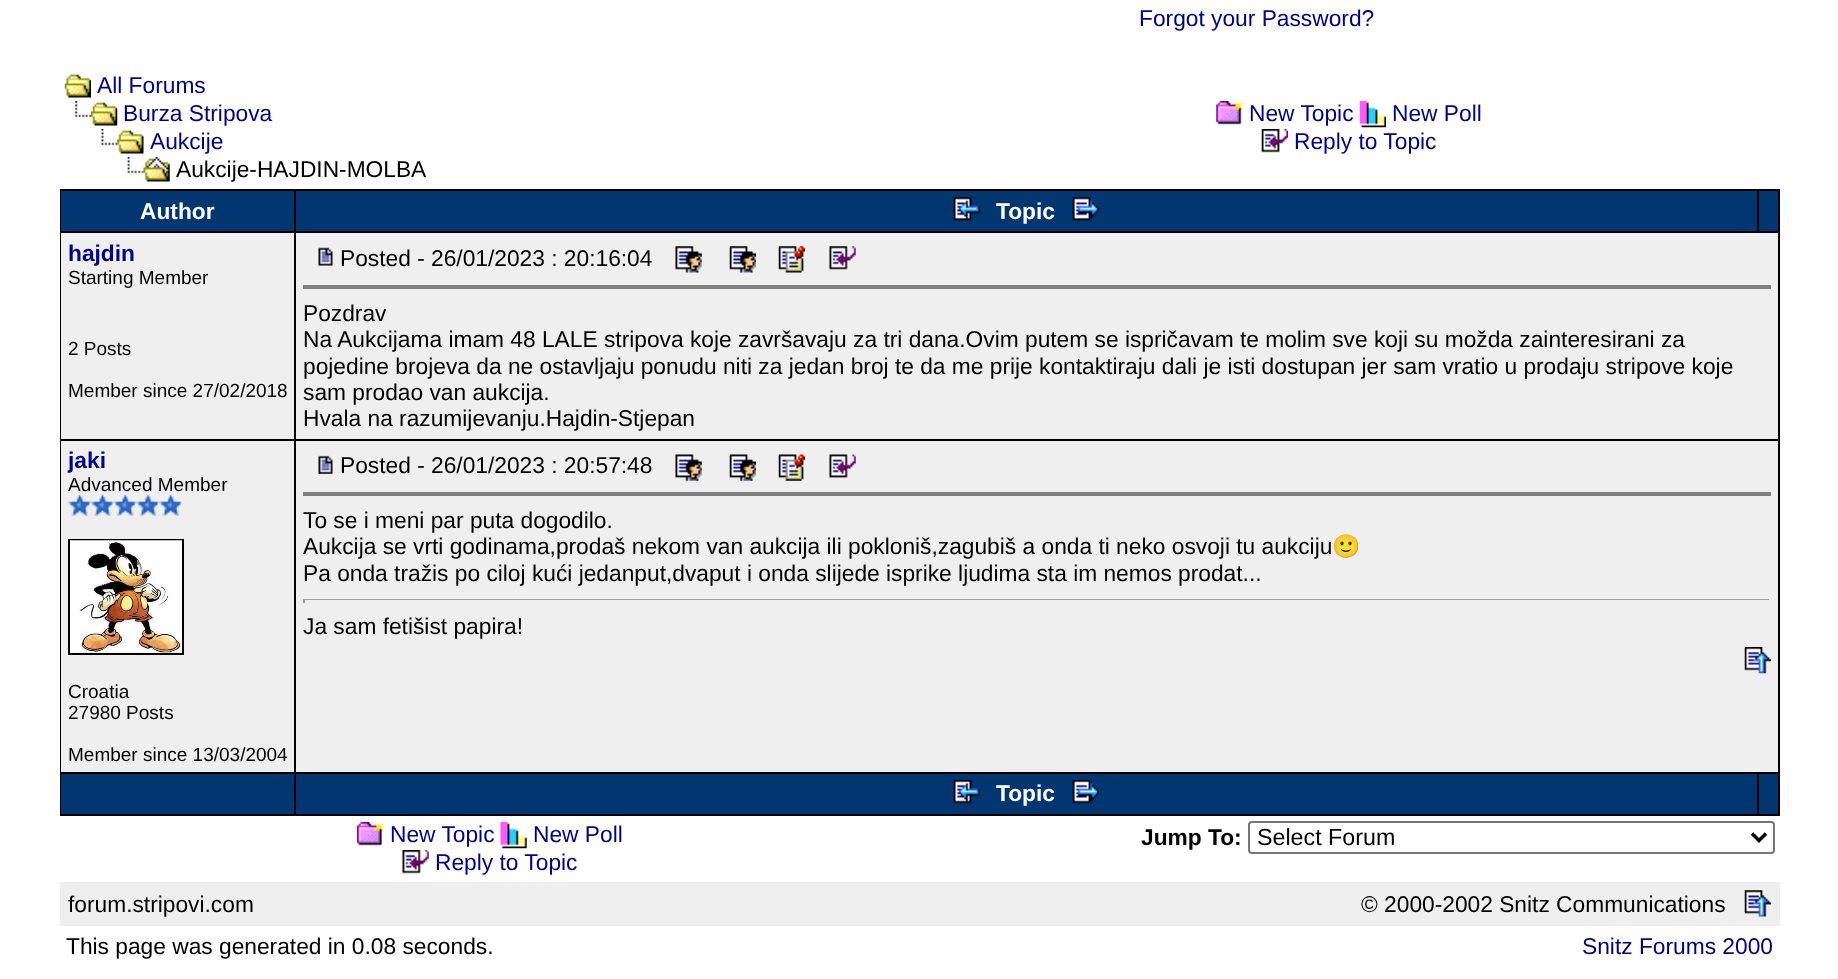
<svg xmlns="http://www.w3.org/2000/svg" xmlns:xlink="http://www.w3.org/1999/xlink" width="1838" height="979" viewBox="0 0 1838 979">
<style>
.cls-1{font:22.75px Liberation Sans;fill:#00008b}
.cls-2{font:22.75px Liberation Sans;fill:#000000}
.cls-3{font:bold 22.75px Liberation Sans;fill:#ffffff}
.cls-4{font:bold 22.75px Liberation Sans;fill:#00008b}
.cls-5{font:19px Liberation Sans;fill:#000000}
.cls-6{font:22.75px Noto Color Emoji;fill:#000000}
.cls-7{font:bold 22.75px Liberation Sans;fill:#000000}
.cls-8{font:23.25px Liberation Sans;fill:#000000}
</style>
<rect width="100%" height="100%" fill="#ffffff"/>
<image xlink:href="image0.png" x="64" y="74" width="27" height="24"/>
<image xlink:href="image1.png" x="74" y="101" width="17" height="17"/>
<image xlink:href="image2.png" x="91" y="102" width="27" height="24"/>
<image xlink:href="image3.png" x="101" y="129" width="17" height="17"/>
<image xlink:href="image4.png" x="117" y="130" width="27" height="24"/>
<image xlink:href="image5.png" x="127" y="157" width="17" height="17"/>
<image xlink:href="image6.png" x="143" y="157" width="27" height="25"/>
<image xlink:href="image7.png" x="1216" y="101" width="27" height="24"/>
<image xlink:href="image8.png" x="1359" y="101" width="27" height="27"/>
<image xlink:href="image9.png" x="1261" y="129" width="27" height="24"/>
<rect fill="#000000" x="60" y="189" width="1720" height="627"/>
<rect fill="#013670" x="61" y="191" width="233" height="40"/>
<rect fill="#013670" x="296" y="191" width="1461" height="40"/>
<image xlink:href="image10.png" x="953" y="197" width="27" height="24"/>
<image xlink:href="image11.png" x="1072" y="197" width="27" height="24"/>
<rect fill="#013670" x="1759" y="191" width="19" height="40"/>
<rect fill="#efefef" x="61" y="233" width="233" height="206"/>
<rect fill="#efefef" x="296" y="233" width="1482" height="206"/>
<image xlink:href="image12.png" x="318" y="247" width="15" height="19"/>
<image xlink:href="image13.png" x="675" y="246" width="27" height="27"/>
<image xlink:href="image14.png" x="729" y="246" width="27" height="27"/>
<image xlink:href="image15.png" x="778" y="246" width="27" height="27"/>
<image xlink:href="image16.png" x="829" y="246" width="27" height="24"/>
<rect fill="#808080" x="303" y="285" width="1468" height="4"/>
<rect fill="#efefef" x="61" y="441" width="233" height="331"/>
<image xlink:href="image17.png" x="68" y="494" width="23" height="22"/>
<image xlink:href="image18.png" x="91" y="494" width="23" height="22"/>
<image xlink:href="image19.png" x="113" y="494" width="24" height="22"/>
<image xlink:href="image20.png" x="136" y="494" width="24" height="22"/>
<image xlink:href="image21.png" x="159" y="494" width="23" height="22"/>
<rect fill="none" stroke="#000000" stroke-width="2" x="69" y="540" width="114" height="114"/>
<image xlink:href="image22.png" x="70" y="540" width="112" height="113"/>
<rect fill="#efefef" x="296" y="441" width="1482" height="331"/>
<image xlink:href="image23.png" x="318" y="455" width="15" height="19"/>
<image xlink:href="image24.png" x="675" y="454" width="27" height="27"/>
<image xlink:href="image25.png" x="729" y="454" width="27" height="27"/>
<image xlink:href="image26.png" x="778" y="454" width="27" height="27"/>
<image xlink:href="image27.png" x="829" y="454" width="27" height="24"/>
<rect fill="#808080" x="303" y="492" width="1468" height="4"/>
<rect fill="#9f9f9f" x="303" y="599" width="1468" height="1"/>
<rect fill="#eeeeee" x="1769" y="599" width="2" height="4"/>
<rect fill="#9f9f9f" x="303" y="599" width="2" height="4"/>
<image xlink:href="image28.png" x="1744" y="647" width="27" height="27"/>
<rect fill="#013670" x="61" y="774" width="233" height="40"/>
<rect fill="#013670" x="296" y="774" width="1461" height="40"/>
<image xlink:href="image29.png" x="953" y="780" width="27" height="24"/>
<image xlink:href="image30.png" x="1072" y="780" width="27" height="24"/>
<rect fill="#013670" x="1759" y="774" width="19" height="40"/>
<image xlink:href="image31.png" x="357" y="822" width="27" height="24"/>
<image xlink:href="image32.png" x="500" y="822" width="27" height="27"/>
<image xlink:href="image33.png" x="402" y="850" width="27" height="24"/>
<rect fill="none" stroke="#767676" stroke-width="2" x="1249" y="822" width="525" height="31" rx="3"/>
<path fill="none" stroke="#000000" stroke-width="3.5" d="M1752 833.5L1759 840.5L1766 833.5"/>
<rect fill="#efefef" x="60" y="882" width="1720" height="44"/>
<image xlink:href="image34.png" x="1744" y="890" width="27" height="27"/>
<text class="cls-1" x="1139" y="26">Forgot your Password?</text>
<text class="cls-1" x="97" y="93">All Forums</text>
<text class="cls-1" x="123" y="121">Burza Stripova</text>
<text class="cls-1" x="150" y="149">Aukcije</text>
<text class="cls-2" x="176" y="177">Aukcije-HAJDIN-MOLBA</text>
<text class="cls-1" x="1249" y="121">New Topic</text>
<text class="cls-1" x="1392" y="121">New Poll</text>
<text class="cls-1" x="1294" y="149">Reply to Topic</text>
<text class="cls-3" x="140" y="219">Author</text>
<text class="cls-3" x="996" y="219">Topic</text>
<text class="cls-4" x="68" y="261">hajdin</text>
<text class="cls-5" x="68" y="284">Starting Member</text>
<text class="cls-5" x="68" y="355">2 Posts</text>
<text class="cls-5" x="68" y="397">Member since 27/02/2018</text>
<text class="cls-2" x="340" y="266">Posted - 26/01/2023 : 20:16:04</text>
<text class="cls-2"><tspan x="303" y="321">Pozdrav</tspan><tspan x="303" y="347">Na Aukcijama imam 48 LALE stripova koje završavaju za tri dana.Ovim putem se ispričavam te molim sve koji su možda zainteresirani za</tspan><tspan x="303" y="374">pojedine brojeva da ne ostavljaju ponudu niti za jedan broj te da me prije kontaktiraju dali je isti dostupan jer sam vratio u prodaju stripove koje</tspan><tspan x="303" y="400">sam prodao van aukcija.</tspan><tspan x="303" y="426">Hvala na razumijevanju.Hajdin-Stjepan</tspan></text>
<text class="cls-4" x="68" y="468">jaki</text>
<text class="cls-5" x="68" y="491">Advanced Member</text>
<text class="cls-5"><tspan x="68" y="698">Croatia</tspan><tspan x="68" y="719">27980 Posts</tspan></text>
<text class="cls-5" x="68" y="761">Member since 13/03/2004</text>
<text class="cls-2" x="340" y="473">Posted - 26/01/2023 : 20:57:48</text>
<text class="cls-2"><tspan x="303" y="528">To se i meni par puta dogodilo.</tspan><tspan x="303" y="554">Aukcija se vrti godinama,prodaš nekom van aukcija ili pokloniš,zagubiš a onda ti neko osvoji tu aukciju</tspan></text>
<text class="cls-6" x="1332" y="554">🙂</text>
<text class="cls-2" x="303" y="581">Pa onda tražis po ciloj kući jedanput,dvaput i onda slijede isprike ljudima sta im nemos prodat...</text>
<text class="cls-2" x="303" y="634">Ja sam fetišist papira!</text>
<text class="cls-3" x="996" y="801">Topic</text>
<text class="cls-1" x="390" y="842">New Topic</text>
<text class="cls-1" x="533" y="842">New Poll</text>
<text class="cls-1" x="435" y="870">Reply to Topic</text>
<text class="cls-7" x="1141" y="845">Jump To:</text>
<text class="cls-8" x="1257" y="845">Select Forum</text>
<text class="cls-2" x="68" y="912">forum.stripovi.com</text>
<text class="cls-2" x="1361" y="912">© 2000-2002 Snitz Communications</text>
<text class="cls-2" x="66" y="954">This page was generated in 0.08 seconds.</text>
<text class="cls-1" x="1582" y="954">Snitz Forums 2000</text>
</svg>
